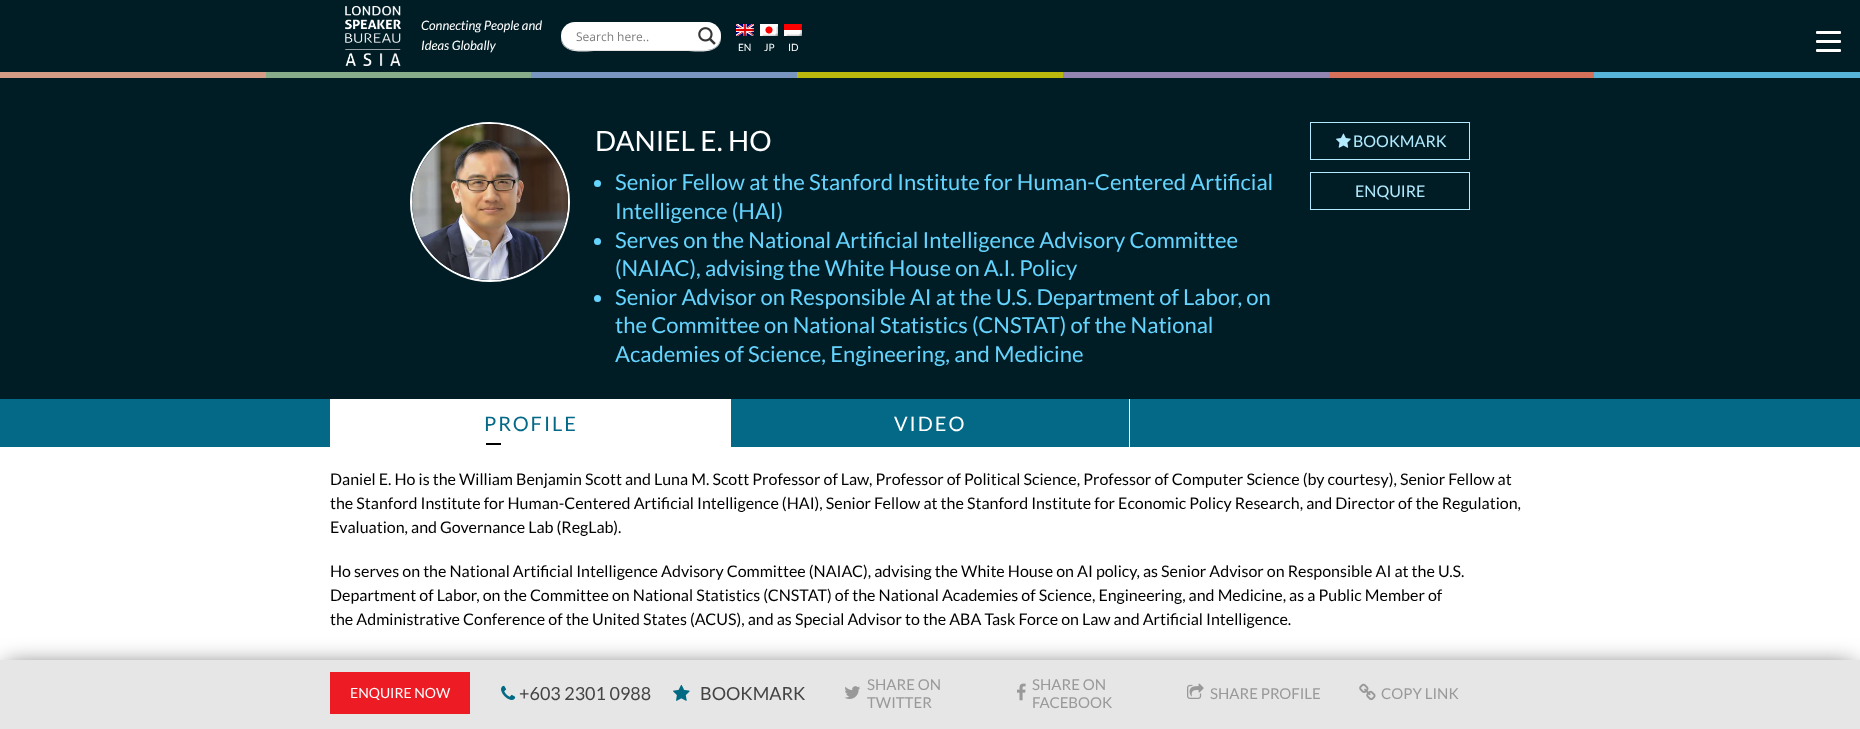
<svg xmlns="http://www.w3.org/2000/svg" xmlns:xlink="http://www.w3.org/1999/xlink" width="1860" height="729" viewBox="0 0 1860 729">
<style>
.cls-1{font:italic 13px Lato;fill:#ffffff}
.cls-2{font:12px Open Sans;fill:#7d7d7d}
.cls-3{font:10px Lato;fill:#ffffff}
.cls-4{font:28px Lato;fill:#ffffff}
.cls-5{font:22px Lato;fill:#65d5ff}
.cls-6{font:16px Lato;fill:#b2ebff}
.cls-7{font:20px Lato;letter-spacing:2px;fill:#036987}
.cls-8{font:20px Lato;letter-spacing:2px;fill:#ffffff}
.cls-9{font:16px Lato;fill:#000000}
.cls-10{font:14px Lato;fill:#ffffff}
.cls-11{font:18px Lato;fill:#444444}
.cls-12{font:15px Lato;fill:#999999}
</style>
<defs>
<clipPath id="clip1"><rect x="693" y="22" width="28" height="28"/></clipPath>
</defs>
<rect width="100%" height="100%" fill="#ffffff"/>
<rect fill="#001d26" x="0" y="0" width="1860" height="399"/>
<image xlink:href="image0.png" x="345" y="6" width="56" height="60"/>
<path fill="#e4e4e4" d="M561 36C560 56 586 51 597 51H685C696 51 722 56 721 36C721 44 715 50 707 50H575C567 50 561 44 561 36Z"/>
<rect fill="#ffffff" x="561" y="22" width="160" height="28" rx="14"/>
<g clip-path="url(#clip1)">
<path fill="#ffffff" fill-opacity="0.64" fill-rule="evenodd" d="M692 23V50H594V22H707L712 23ZM720 41C721 38 721 34 720 31Z"/>
</g>
<image xlink:href="image1.png" x="698" y="27" width="18" height="18"/>
<image xlink:href="image2.png" x="736" y="24" width="18" height="12"/>
<image xlink:href="image3.png" x="760" y="24" width="18" height="12"/>
<image xlink:href="image4.png" x="784" y="24" width="18" height="12"/>
<rect fill="#d69d86" x="0" y="72" width="266" height="6"/>
<rect fill="#86ac8a" x="266" y="72" width="265" height="6"/>
<rect fill="#7996c0" x="531" y="72" width="266" height="6"/>
<rect fill="#bab70d" x="797" y="72" width="266" height="6"/>
<rect fill="#9384b1" x="1063" y="72" width="266" height="6"/>
<rect fill="#d5705a" x="1329" y="72" width="265" height="6"/>
<rect fill="#56b5d9" x="1594" y="72" width="266" height="6"/>
<path fill="#00161d" d="M1816 33C1816 36 1817.5 35 1821 35H1836C1839.5 35 1841 36 1841 33C1841 33.5 1840.5 34 1840 34H1817C1816.5 34 1816 33.5 1816 33Z"/>
<rect fill="#ffffff" x="1816" y="31" width="25" height="3" rx="1"/>
<path fill="#00161d" d="M1816 42C1816 45 1817.5 44 1821 44H1836C1839.5 44 1841 45 1841 42C1841 42.5 1840.5 43 1840 43H1817C1816.5 43 1816 42.5 1816 42Z"/>
<rect fill="#ffffff" x="1816" y="40" width="25" height="3" rx="1"/>
<path fill="#00161d" d="M1816 51C1816 54 1817.5 53 1821 53H1836C1839.5 53 1841 54 1841 51C1841 51.5 1840.5 52 1840 52H1817C1816.5 52 1816 51.5 1816 51Z"/>
<rect fill="#ffffff" x="1816" y="49" width="25" height="3" rx="1"/>
<circle fill="none" stroke="#ffffff" stroke-width="2" cx="490" cy="202" r="79"/>
<image xlink:href="image5.png" x="412" y="124" width="156" height="156"/>
<circle fill="#65d5ff" cx="597.5" cy="183.5" r="3.5"/>
<circle fill="#65d5ff" cx="597.5" cy="241.5" r="3.5"/>
<circle fill="#65d5ff" cx="597.5" cy="298.5" r="3.5"/>
<rect fill="none" stroke="#b2ebff" x="1310.5" y="122.5" width="159" height="37"/>
<image xlink:href="image6.png" x="1336" y="133" width="15" height="15"/>
<rect fill="none" stroke="#b2ebff" x="1310.5" y="172.5" width="159" height="37"/>
<rect fill="#036987" x="0" y="399" width="1860" height="48"/>
<rect fill="#ffffff" x="330" y="399" width="401" height="48"/>
<rect fill="#000000" x="486" y="443" width="15" height="2"/>
<rect fill="#ffffff" x="1129" y="399" width="1" height="48"/>
<rect fill="#555555" filter="blur(12px)" x="6" y="666" width="1848" height="57"/>
<rect fill="#e6e6e6" x="0" y="660" width="1860" height="69"/>
<rect fill="#ed1c24" x="330" y="672" width="140" height="42"/>
<image xlink:href="image7.png" x="501" y="685" width="15" height="15"/>
<image xlink:href="image8.png" x="673" y="684" width="17" height="17"/>
<image xlink:href="image9.png" x="844" y="686" width="16" height="13"/>
<image xlink:href="image10.png" x="1017" y="683" width="9" height="18"/>
<image xlink:href="image11.png" x="1187" y="683" width="17" height="16"/>
<image xlink:href="image12.png" x="1359" y="683" width="17" height="18"/>
<text class="cls-1"><tspan x="421" y="30">Connecting People and</tspan><tspan x="421" y="50">Ideas Globally</tspan></text>
<text class="cls-2" x="576" y="41">Search here..</text>
<text class="cls-3" x="738" y="51">EN</text>
<text class="cls-3" x="764" y="51">JP</text>
<text class="cls-3" x="788" y="51">ID</text>
<text class="cls-4" x="595" y="151">DANIEL E. HO</text>
<text class="cls-5"><tspan x="615" y="190">Senior Fellow at the Stanford Institute for Human-Centered Artificial</tspan><tspan x="615" y="219">Intelligence (HAI)</tspan><tspan x="615" y="248">Serves on the National Artificial Intelligence Advisory Committee</tspan><tspan x="615" y="276">(NAIAC), advising the White House on A.I. Policy</tspan><tspan x="615" y="305">Senior Advisor on Responsible AI at the U.S. Department of Labor, on</tspan><tspan x="615" y="333">the Committee on National Statistics (CNSTAT) of the National</tspan><tspan x="615" y="362">Academies of Science, Engineering, and Medicine</tspan></text>
<text class="cls-6" x="1353" y="147">BOOKMARK</text>
<text class="cls-6" x="1355" y="197">ENQUIRE</text>
<text class="cls-7" x="484" y="431">PROFILE</text>
<text class="cls-8" x="894" y="431">VIDEO</text>
<text class="cls-9" x="330" y="485">Daniel E. Ho is the William Benjamin Scott and Luna M. Scott Professor of Law</text>
<text class="cls-9" x="869" y="485">, Professor of Political Science, Professor of Computer Science (by courtesy), Senior Fellow at</text>
<text class="cls-9"><tspan x="330" y="509">the Stanford Institute for Human-Centered Artificial Intelligence (HAI), Senior Fellow at the Stanford Institute for Economic Policy Research, and Director of the Regulation,</tspan><tspan x="330" y="533">Evaluation, and Governance Lab (RegLab).</tspan></text>
<text class="cls-9"><tspan x="330" y="577">Ho serves on the National Artificial Intelligence Advisory Committee (NAIAC), advising the White House on AI policy, as Senior Advisor on Responsible AI at the U.S.</tspan><tspan x="330" y="601">Department of Labor, on the Committee on National Statistics (CNSTAT) of the National Academies of Science, Engineering, and Medicine, as a Public Member of</tspan><tspan x="330" y="625">the Administrative Conference of the United States (ACUS), and as Special Advisor to the ABA Task Force on Law and Artificial Intelligence.</tspan></text>
<text class="cls-10" x="350" y="698">ENQUIRE NOW</text>
<text class="cls-11" x="519" y="700">+603 2301 0988</text>
<text class="cls-11" x="700" y="700">BOOKMARK</text>
<text class="cls-12"><tspan x="867" y="690">SHARE ON</tspan><tspan x="867" y="708">TWITTER</tspan></text>
<text class="cls-12"><tspan x="1032" y="690">SHARE ON</tspan><tspan x="1032" y="708">FACEBOOK</tspan></text>
<text class="cls-12" x="1210" y="699">SHARE PROFILE</text>
<text class="cls-12" x="1381" y="699">COPY LINK</text>
</svg>
